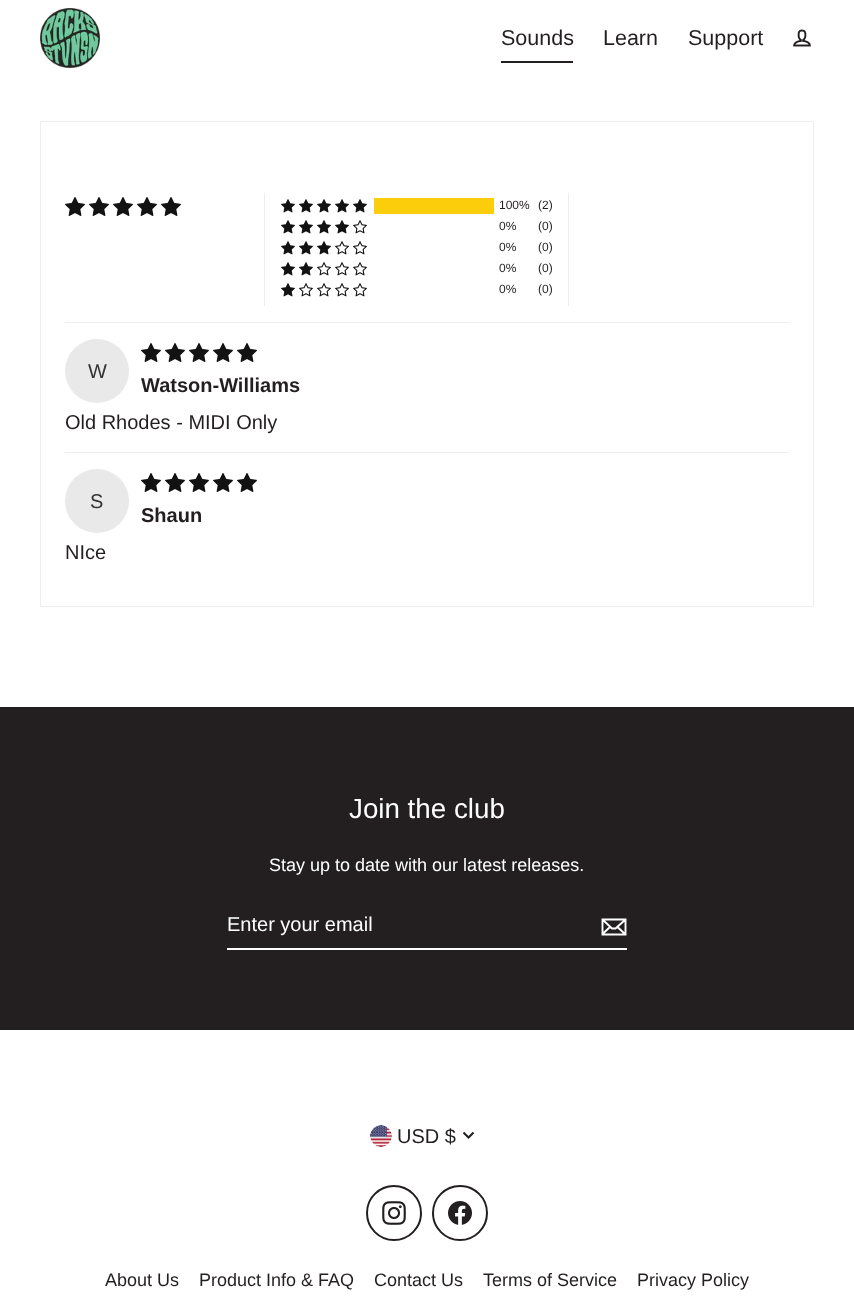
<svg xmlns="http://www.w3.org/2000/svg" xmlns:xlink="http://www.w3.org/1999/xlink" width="854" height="1313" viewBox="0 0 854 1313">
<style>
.cls-1{font:21.5px Liberation Sans;fill:#231f20}
.cls-2{font:12px Liberation Sans;fill:#231f20}
.cls-3{font:20px Liberation Sans;fill:#333333}
.cls-4{font:bold 20px Liberation Sans;fill:#231f20}
.cls-5{font:20px Liberation Sans;fill:#231f20}
.cls-6{font:27.75px Liberation Sans;fill:#ffffff}
.cls-7{font:18px Liberation Sans;fill:#ffffff}
.cls-8{font:20px Liberation Sans;fill:#ffffff}
.cls-9{font:18px Liberation Sans;fill:#231f20}
</style>
<rect width="100%" height="100%" fill="#ffffff"/>
<image xlink:href="image0.png" x="40" y="8" width="60" height="60"/>
<rect fill="#231f20" x="501" y="61" width="72" height="2"/>
<image xlink:href="image1.png" x="793" y="29" width="18" height="18"/>
<rect fill="none" stroke="#eeeeee" x="40.5" y="121.5" width="773" height="485"/>
<image xlink:href="image2.png" x="65" y="197" width="20" height="19"/>
<image xlink:href="image2.png" x="89" y="197" width="20" height="19"/>
<image xlink:href="image2.png" x="113" y="197" width="20" height="19"/>
<image xlink:href="image2.png" x="137" y="197" width="20" height="19"/>
<image xlink:href="image2.png" x="161" y="197" width="20" height="19"/>
<rect fill="#eeeeee" x="568" y="193" width="1" height="113"/>
<rect fill="#eeeeee" x="264" y="193" width="1" height="113"/>
<image xlink:href="image3.png" x="281" y="199" width="14" height="14"/>
<image xlink:href="image3.png" x="299" y="199" width="14" height="14"/>
<image xlink:href="image3.png" x="317" y="199" width="14" height="14"/>
<image xlink:href="image3.png" x="335" y="199" width="14" height="14"/>
<image xlink:href="image3.png" x="353" y="199" width="14" height="14"/>
<rect fill="#fbcd0a" x="374" y="198" width="120" height="16"/>
<image xlink:href="image3.png" x="281" y="220" width="14" height="14"/>
<image xlink:href="image3.png" x="299" y="220" width="14" height="14"/>
<image xlink:href="image3.png" x="317" y="220" width="14" height="14"/>
<image xlink:href="image3.png" x="335" y="220" width="14" height="14"/>
<image xlink:href="image4.png" x="353" y="220" width="14" height="14"/>
<image xlink:href="image3.png" x="281" y="241" width="14" height="14"/>
<image xlink:href="image3.png" x="299" y="241" width="14" height="14"/>
<image xlink:href="image3.png" x="317" y="241" width="14" height="14"/>
<image xlink:href="image4.png" x="335" y="241" width="14" height="14"/>
<image xlink:href="image4.png" x="353" y="241" width="14" height="14"/>
<image xlink:href="image3.png" x="281" y="262" width="14" height="14"/>
<image xlink:href="image3.png" x="299" y="262" width="14" height="14"/>
<image xlink:href="image4.png" x="317" y="262" width="14" height="14"/>
<image xlink:href="image4.png" x="335" y="262" width="14" height="14"/>
<image xlink:href="image4.png" x="353" y="262" width="14" height="14"/>
<image xlink:href="image3.png" x="281" y="283" width="14" height="14"/>
<image xlink:href="image4.png" x="299" y="283" width="14" height="14"/>
<image xlink:href="image4.png" x="317" y="283" width="14" height="14"/>
<image xlink:href="image4.png" x="335" y="283" width="14" height="14"/>
<image xlink:href="image4.png" x="353" y="283" width="14" height="14"/>
<rect fill="#eeeeee" x="65" y="322" width="724" height="1"/>
<image xlink:href="image2.png" x="141" y="343" width="20" height="19"/>
<image xlink:href="image2.png" x="165" y="343" width="20" height="19"/>
<image xlink:href="image2.png" x="189" y="343" width="20" height="19"/>
<image xlink:href="image2.png" x="213" y="343" width="20" height="19"/>
<image xlink:href="image2.png" x="237" y="343" width="20" height="19"/>
<circle fill="#e9e9e9" cx="97" cy="371" r="32"/>
<rect fill="#eeeeee" x="65" y="452" width="724" height="1"/>
<image xlink:href="image2.png" x="141" y="473" width="20" height="19"/>
<image xlink:href="image2.png" x="165" y="473" width="20" height="19"/>
<image xlink:href="image2.png" x="189" y="473" width="20" height="19"/>
<image xlink:href="image2.png" x="213" y="473" width="20" height="19"/>
<image xlink:href="image2.png" x="237" y="473" width="20" height="19"/>
<circle fill="#e9e9e9" cx="97" cy="501" r="32"/>
<rect fill="#231f20" x="0" y="707" width="854" height="323"/>
<rect fill="#ffffff" x="227" y="948" width="400" height="2"/>
<path fill="none" stroke="#ffffff" stroke-width="1.9" d="M625.5 934.5H602.5V919.5H625.5ZM602.5 919.5L612 928.5H615.5L625.5 919.5M610 927L602.5 934M625.5 934.5L617.5 927"/>
<image xlink:href="image5.png" x="370" y="1125" width="22" height="22"/>
<path fill="none" stroke="#231f20" stroke-width="2" d="M463.5 1132.5L468.5 1137.5L473.5 1132.5"/>
<circle fill="none" stroke="#231f20" stroke-width="2" cx="394" cy="1213" r="27"/>
<image xlink:href="image6.png" x="382" y="1201" width="24" height="24"/>
<circle fill="none" stroke="#231f20" stroke-width="2" cx="460" cy="1213" r="27"/>
<image xlink:href="image7.png" x="448" y="1201" width="24" height="24"/>
<text class="cls-1" x="501" y="45">Sounds</text>
<text class="cls-1" x="603" y="45">Learn</text>
<text class="cls-1" x="688" y="45">Support</text>
<text class="cls-2" x="499" y="209">100%</text>
<text class="cls-2" x="538" y="209">(2)</text>
<text class="cls-2" x="499" y="230">0%</text>
<text class="cls-2" x="538" y="230">(0)</text>
<text class="cls-2" x="499" y="251">0%</text>
<text class="cls-2" x="538" y="251">(0)</text>
<text class="cls-2" x="499" y="272">0%</text>
<text class="cls-2" x="538" y="272">(0)</text>
<text class="cls-2" x="499" y="293">0%</text>
<text class="cls-2" x="538" y="293">(0)</text>
<text class="cls-3" x="88" y="378">W</text>
<text class="cls-4" x="141" y="392">Watson-Williams</text>
<text class="cls-5" x="65" y="429">Old Rhodes - MIDI Only</text>
<text class="cls-3" x="90" y="508">S</text>
<text class="cls-4" x="141" y="522">Shaun</text>
<text class="cls-5" x="65" y="559">NIce</text>
<text class="cls-6" x="349" y="818">Join the club</text>
<text class="cls-7" x="269" y="871">Stay up to date with our latest releases.</text>
<text class="cls-8" x="227" y="931">Enter your email</text>
<text class="cls-5" x="397" y="1143">USD $</text>
<text class="cls-9" x="105" y="1286">About Us</text>
<text class="cls-9" x="199" y="1286">Product Info &amp; FAQ</text>
<text class="cls-9" x="374" y="1286">Contact Us</text>
<text class="cls-9" x="483" y="1286">Terms of Service</text>
<text class="cls-9" x="637" y="1286">Privacy Policy</text>
</svg>
